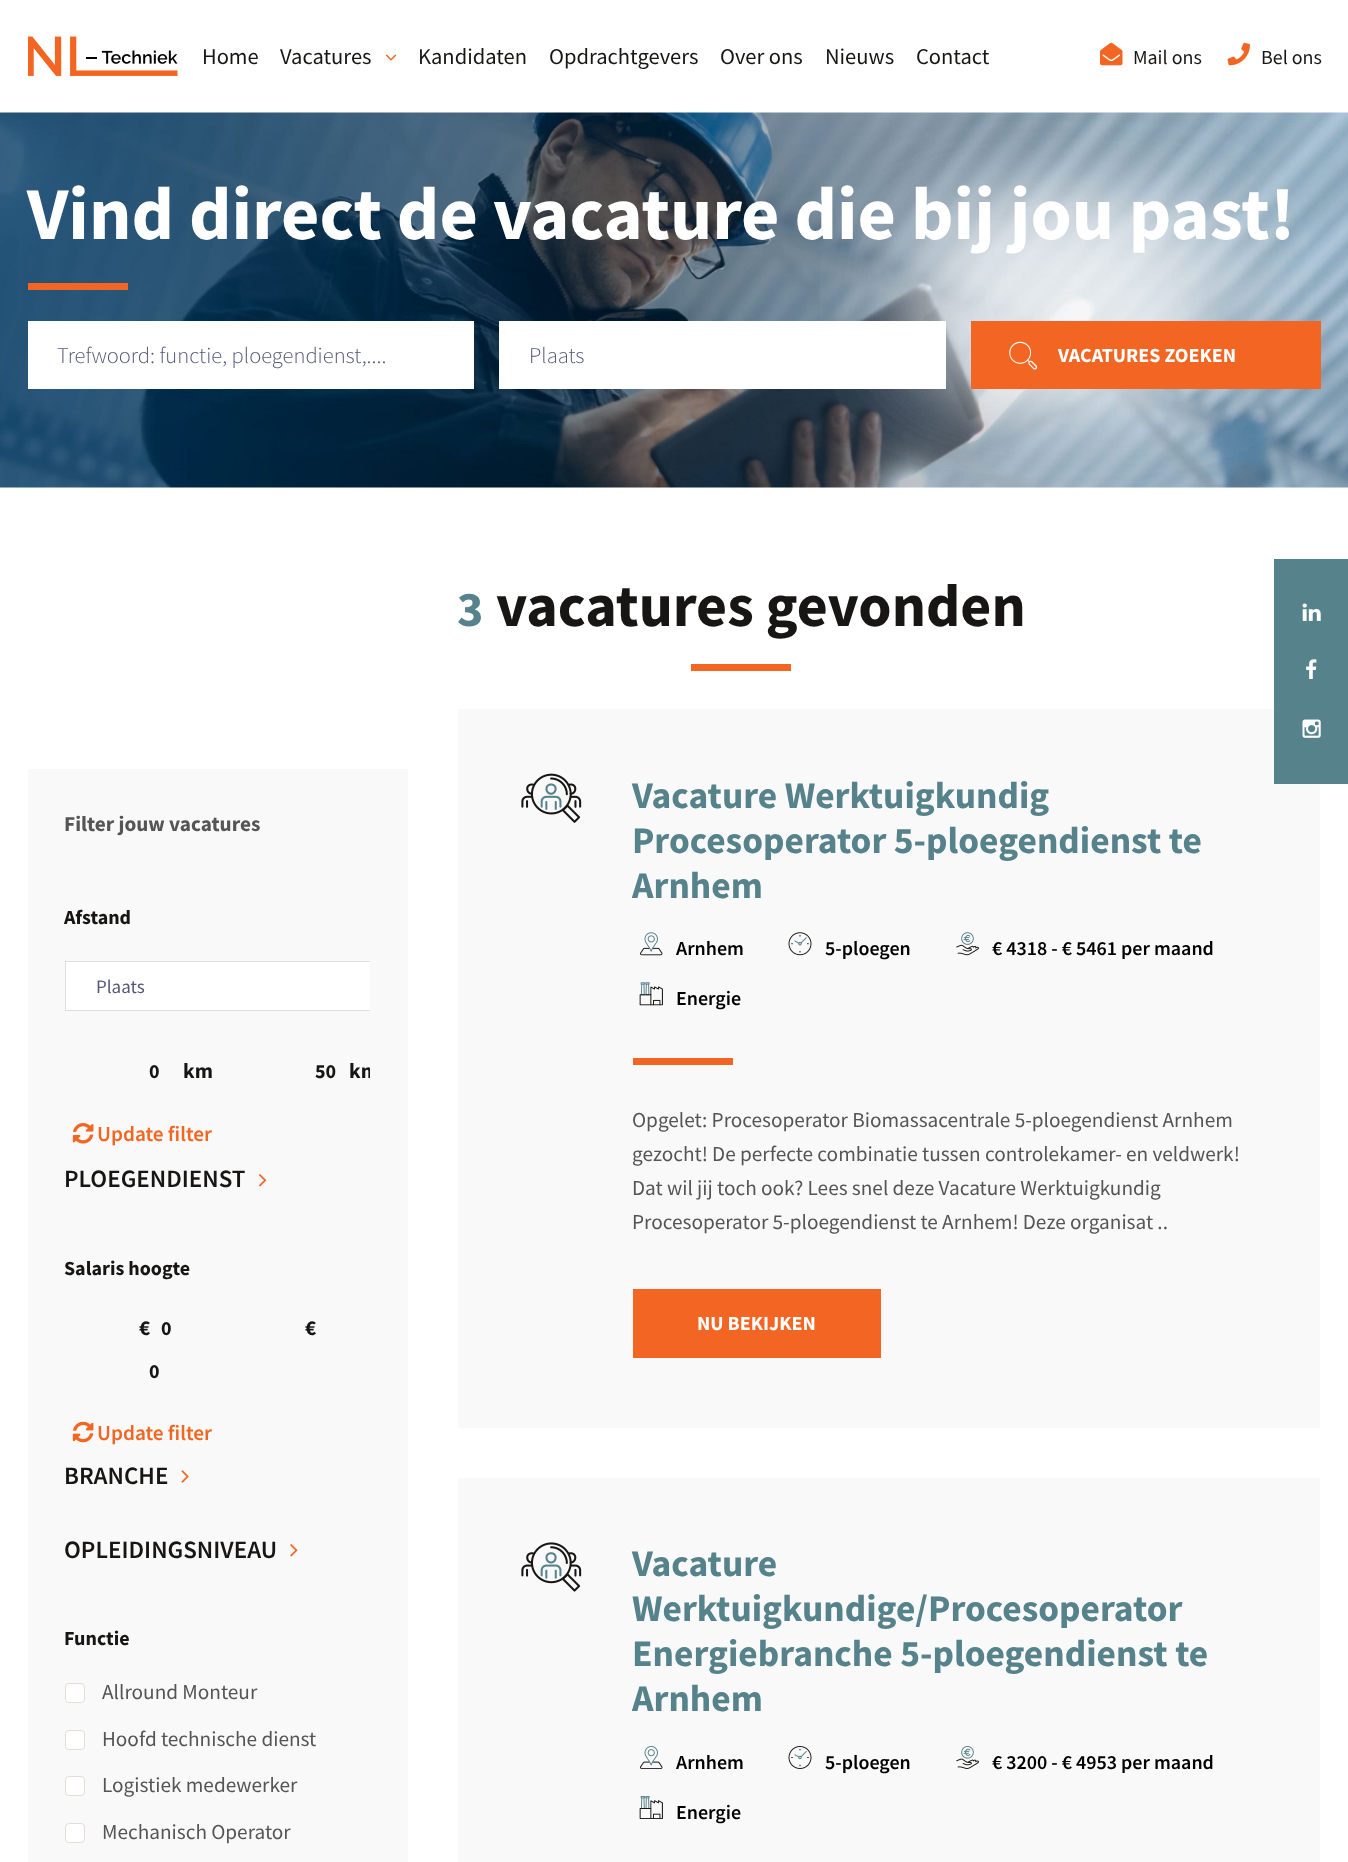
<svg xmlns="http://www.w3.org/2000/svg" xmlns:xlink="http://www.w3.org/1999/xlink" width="1348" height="1862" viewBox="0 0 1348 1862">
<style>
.cls-1{font:22.5px Source Sans Pro;fill:#171614}
.cls-2{font:20px Source Sans Pro;fill:#171614}
.cls-3{font:bold 74.4px Source Sans Pro;fill:#ffffff}
.cls-4{font:300 22.5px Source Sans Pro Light;fill:#555777}
.cls-5{font:bold 20px Source Sans Pro;fill:#ffffff}
.cls-6{font:bold 21.25px Source Sans Pro;fill:#555555}
.cls-7{font:bold 20px Source Sans Pro;fill:#171614}
.cls-8{font:19px Source Sans Pro;fill:#555777}
.cls-9{font:bold 21.25px Source Sans Pro;fill:#171614}
.cls-10{font:600 21.25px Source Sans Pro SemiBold;fill:#f26622}
.cls-11{font:600 25px Source Sans Pro SemiBold;fill:#171614}
.cls-12{font:21.25px Source Sans Pro;fill:#555555}
.cls-13{font:bold 50px Source Sans Pro;fill:#55828b}
.cls-14{font:bold 60px Source Sans Pro;fill:#171614}
.cls-15{font:bold 37.5px Source Sans Pro;fill:#55828b}
.cls-16{font:600 20px Source Sans Pro SemiBold;fill:#000000}
</style>
<defs>
<clipPath id="clip1"><rect x="65" y="881" width="305" height="277"/></clipPath>
</defs>
<rect width="100%" height="100%" fill="#ffffff"/>
<image xlink:href="image0.png" x="28" y="36" width="150" height="40"/>
<image xlink:href="image1.png" x="385" y="54" width="12" height="7"/>
<image xlink:href="image2.png" x="1100" y="42" width="23" height="24"/>
<image xlink:href="image3.png" x="1227" y="42" width="23" height="24"/>
<image xlink:href="image4.png" x="0" y="112" width="1348" height="376"/>
<rect fill="#f26522" x="28" y="283" width="100" height="7"/>
<rect fill="#ffffff" x="28" y="321" width="446" height="68"/>
<rect fill="#ffffff" x="499" y="321" width="447" height="68"/>
<rect fill="#f26522" x="971" y="321" width="350" height="68"/>
<image xlink:href="image5.png" x="1009" y="341" width="29" height="29"/>
<rect fill="#f9f9f9" x="28" y="769" width="380" height="1093"/>
<rect fill="#ffffff" x="66" y="962" width="304" height="48"/>
<g clip-path="url(#clip1)">
<rect fill="none" stroke="#dedede" x="65.5" y="961.5" width="374" height="49"/>
</g>
<image xlink:href="image6.png" x="72" y="1123" width="22" height="21"/>
<image xlink:href="image7.png" x="259" y="1174" width="8" height="13"/>
<image xlink:href="image8.png" x="72" y="1421" width="22" height="22"/>
<image xlink:href="image9.png" x="181" y="1470" width="8" height="13"/>
<image xlink:href="image10.png" x="290" y="1544" width="8" height="13"/>
<rect fill="#ffffff" stroke="#e3dfd8" x="65.5" y="1683.5" width="19" height="19" rx="3.5"/>
<rect fill="#ffffff" stroke="#e3dfd8" x="65.5" y="1730.5" width="19" height="19" rx="3.5"/>
<rect fill="#ffffff" stroke="#e3dfd8" x="65.5" y="1776.5" width="19" height="19" rx="3.5"/>
<rect fill="#ffffff" stroke="#e3dfd8" x="65.5" y="1823.5" width="19" height="19" rx="3.5"/>
<rect fill="#f26522" x="691" y="664" width="100" height="7"/>
<rect fill="#f9f9f9" x="458" y="709" width="862" height="719"/>
<image xlink:href="image11.png" x="521" y="773" width="61" height="50"/>
<image xlink:href="image12.png" x="640" y="932" width="23" height="24"/>
<image xlink:href="image13.png" x="788" y="932" width="24" height="24"/>
<image xlink:href="image14.png" x="956" y="932" width="23" height="24"/>
<image xlink:href="image15.png" x="639" y="982" width="24" height="24"/>
<rect fill="#f26522" x="633" y="1058" width="100" height="7"/>
<rect fill="#f26522" x="633" y="1289" width="248" height="69"/>
<rect fill="#f9f9f9" x="458" y="1478" width="862" height="384"/>
<image xlink:href="image16.png" x="521" y="1542" width="61" height="50"/>
<image xlink:href="image17.png" x="640" y="1746" width="23" height="23"/>
<image xlink:href="image18.png" x="788" y="1746" width="24" height="23"/>
<image xlink:href="image19.png" x="956" y="1746" width="23" height="23"/>
<image xlink:href="image20.png" x="639" y="1796" width="24" height="23"/>
<rect fill="#55828b" x="1274" y="559" width="74" height="225"/>
<image xlink:href="image21.png" x="1302" y="603" width="19" height="18"/>
<image xlink:href="image22.png" x="1306" y="659" width="11" height="20"/>
<image xlink:href="image23.png" x="1302" y="719" width="19" height="19"/>
<text class="cls-1" x="202" y="64">Home</text>
<text class="cls-1" x="280" y="64">Vacatures</text>
<text class="cls-1" x="418" y="64">Kandidaten</text>
<text class="cls-1" x="549" y="64">Opdrachtgevers</text>
<text class="cls-1" x="720" y="64">Over ons</text>
<text class="cls-1" x="825" y="64">Nieuws</text>
<text class="cls-1" x="916" y="64">Contact</text>
<text class="cls-2" x="1133" y="64">Mail ons</text>
<text class="cls-2" x="1261" y="64">Bel ons</text>
<text class="cls-3" x="27" y="239">Vind direct de vacature die bij jou past!</text>
<text class="cls-4" x="57" y="363">Trefwoord: functie, ploegendienst,....</text>
<text class="cls-4" x="529" y="363">Plaats</text>
<text class="cls-5" x="1058" y="362">VACATURES ZOEKEN</text>
<text class="cls-6" x="64" y="831">Filter jouw vacatures</text>
<text class="cls-7" x="64" y="924">Afstand</text>
<text class="cls-8" x="96" y="993">Plaats</text>
<text class="cls-7" x="149" y="1078">0</text>
<text class="cls-9" x="183" y="1078">km</text>
<text class="cls-7" x="315" y="1078">50</text>
<g clip-path="url(#clip1)">
<text class="cls-9" x="349" y="1078">km</text>
</g>
<text class="cls-10" x="97" y="1141">Update filter</text>
<text class="cls-11" x="64" y="1187">PLOEGENDIENST</text>
<text class="cls-7" x="64" y="1275">Salaris hoogte</text>
<text class="cls-9" x="139" y="1335">€</text>
<text class="cls-7" x="161" y="1335">0</text>
<text class="cls-9" x="305" y="1335">€</text>
<text class="cls-7" x="149" y="1378">0</text>
<text class="cls-10" x="97" y="1440">Update filter</text>
<text class="cls-11" x="64" y="1484">BRANCHE</text>
<text class="cls-11" x="64" y="1558">OPLEIDINGSNIVEAU</text>
<text class="cls-7" x="64" y="1645">Functie</text>
<text class="cls-12" x="102" y="1699">Allround Monteur</text>
<text class="cls-12" x="102" y="1746">Hoofd technische dienst</text>
<text class="cls-12" x="102" y="1792">Logistiek medewerker</text>
<text class="cls-12" x="102" y="1839">Mechanisch Operator</text>
<text class="cls-13" x="457" y="626">3</text>
<text class="cls-14" x="496" y="626">vacatures gevonden</text>
<text class="cls-15"><tspan x="632" y="808">Vacature Werktuigkundig</tspan><tspan x="632" y="853">Procesoperator 5-ploegendienst te</tspan><tspan x="632" y="898">Arnhem</tspan></text>
<text class="cls-16" x="676" y="955">Arnhem</text>
<text class="cls-16" x="825" y="955">5-ploegen</text>
<text class="cls-16" x="992" y="955">€ 4318 - € 5461 per maand</text>
<text class="cls-16" x="676" y="1005">Energie</text>
<text class="cls-12"><tspan x="632" y="1127">Opgelet: Procesoperator Biomassacentrale 5-ploegendienst Arnhem</tspan><tspan x="632" y="1161">gezocht! De perfecte combinatie tussen controlekamer- en veldwerk!</tspan><tspan x="632" y="1195">Dat wil jij toch ook? Lees snel deze Vacature Werktuigkundig</tspan><tspan x="632" y="1229">Procesoperator 5-ploegendienst te Arnhem! Deze organisat ..</tspan></text>
<text class="cls-5" x="697" y="1330">NU BEKIJKEN</text>
<text class="cls-15"><tspan x="632" y="1576">Vacature</tspan><tspan x="632" y="1621">Werktuigkundige/Procesoperator</tspan><tspan x="632" y="1666">Energiebranche 5-ploegendienst te</tspan><tspan x="632" y="1711">Arnhem</tspan></text>
<text class="cls-16" x="676" y="1769">Arnhem</text>
<text class="cls-16" x="825" y="1769">5-ploegen</text>
<text class="cls-16" x="992" y="1769">€ 3200 - € 4953 per maand</text>
<text class="cls-16" x="676" y="1819">Energie</text>
</svg>
